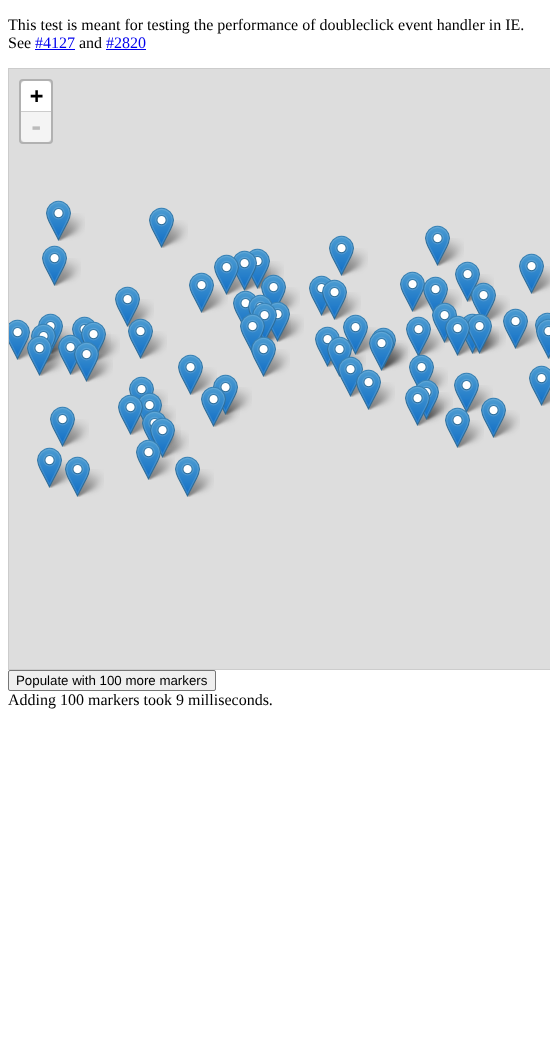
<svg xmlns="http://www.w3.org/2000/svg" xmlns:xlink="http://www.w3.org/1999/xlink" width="550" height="1040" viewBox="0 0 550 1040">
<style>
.cls-1{font:16px Liberation Serif;fill:#000000}
.cls-2{font:16px Liberation Serif;fill:#0000ee}
.cls-3{font:bold 22px DejaVu Sans Mono;fill:#000000}
.cls-4{font:bold 24px DejaVu Sans Mono;fill:#bbbbbb}
.cls-5{font:13.3px Liberation Sans;fill:#000000}
</style>
<rect width="100%" height="100%" fill="#ffffff"/>
<rect fill="#0000ee" x="35" y="49" width="40" height="1"/>
<rect fill="#0000ee" x="106" y="49" width="40" height="1"/>
<rect fill="#dddddd" stroke="#cccccc" x="8.5" y="68.5" width="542" height="601"/>
<rect fill="none" stroke="#b1b1b1" stroke-width="2" x="20" y="80" width="32" height="63" rx="3"/>
<path fill="#ffffff" d="M25 81H47C49 81 51 83 51 85V112H21V85C21 83 23 81 25 81Z"/>
<rect fill="#cccccc" x="21" y="111" width="30" height="1"/>
<path fill="#f4f4f4" d="M21 112H51V138C51 140 49 142 47 142H25C23 142 21 140 21 138Z"/>
<image xlink:href="image56.png" x="56" y="213" width="29" height="28"/>
<image xlink:href="image0.png" x="46" y="200" width="25" height="41"/>
<image xlink:href="image56.png" x="159" y="220" width="29" height="28"/>
<image xlink:href="image0.png" x="149" y="207" width="25" height="41"/>
<image xlink:href="image56.png" x="339" y="248" width="29" height="28"/>
<image xlink:href="image0.png" x="329" y="235" width="25" height="41"/>
<image xlink:href="image56.png" x="435" y="238" width="29" height="28"/>
<image xlink:href="image0.png" x="425" y="225" width="25" height="41"/>
<image xlink:href="image56.png" x="52" y="258" width="29" height="28"/>
<image xlink:href="image0.png" x="42" y="245" width="25" height="41"/>
<image xlink:href="image56.png" x="125" y="299" width="29" height="28"/>
<image xlink:href="image0.png" x="115" y="286" width="25" height="41"/>
<image xlink:href="image61.png" x="242" y="267" width="29" height="24"/>
<image xlink:href="image60.png" x="224" y="273" width="29" height="22"/>
<image xlink:href="image59.png" x="199" y="285" width="29" height="28"/>
<image xlink:href="image0.png" x="189" y="272" width="25" height="41"/>
<image xlink:href="image57.png" x="255" y="261" width="29" height="28"/>
<image xlink:href="image3.png" x="248" y="248" width="22" height="41"/>
<image xlink:href="image2.png" x="233" y="250" width="24" height="41"/>
<image xlink:href="image1.png" x="214" y="254" width="25" height="41"/>
<image xlink:href="image62.png" x="279" y="287" width="21" height="25"/>
<image xlink:href="image4.png" x="261" y="274" width="25" height="31"/>
<image xlink:href="image67.png" x="319" y="294" width="29" height="22"/>
<image xlink:href="image5.png" x="309" y="275" width="23" height="41"/>
<image xlink:href="image63.png" x="332" y="292" width="29" height="28"/>
<image xlink:href="image6.png" x="322" y="279" width="25" height="41"/>
<image xlink:href="image58.png" x="410" y="284" width="21" height="28"/>
<image xlink:href="image0.png" x="400" y="271" width="25" height="41"/>
<image xlink:href="image64.png" x="433" y="289" width="29" height="24"/>
<image xlink:href="image7.png" x="423" y="276" width="25" height="37"/>
<image xlink:href="image69.png" x="486" y="295" width="24" height="27"/>
<image xlink:href="image65.png" x="465" y="274" width="29" height="28"/>
<image xlink:href="image8.png" x="455" y="261" width="25" height="41"/>
<image xlink:href="image9.png" x="471" y="282" width="25" height="36"/>
<image xlink:href="image58.png" x="529" y="266" width="21" height="28"/>
<image xlink:href="image0.png" x="519" y="253" width="25" height="41"/>
<image xlink:href="image10.png" x="233" y="290" width="23" height="34"/>
<image xlink:href="image11.png" x="248" y="294" width="25" height="21"/>
<image xlink:href="image66.png" x="275" y="314" width="29" height="28"/>
<image xlink:href="image79.png" x="269" y="328" width="4" height="5"/>
<image xlink:href="image71.png" x="262" y="320" width="29" height="21"/>
<image xlink:href="image75.png" x="250" y="328" width="28" height="26"/>
<image xlink:href="image12.png" x="269" y="301" width="21" height="41"/>
<image xlink:href="image86.png" x="37" y="348" width="28" height="28"/>
<image xlink:href="image81.png" x="45" y="336" width="19" height="28"/>
<image xlink:href="image70.png" x="50" y="326" width="25" height="28"/>
<image xlink:href="image13.png" x="38" y="313" width="25" height="41"/>
<image xlink:href="image14.png" x="252" y="302" width="25" height="36"/>
<image xlink:href="image80.png" x="416" y="329" width="29" height="27"/>
<image xlink:href="image68.png" x="442" y="315" width="24" height="28"/>
<image xlink:href="image76.png" x="470" y="327" width="29" height="27"/>
<image xlink:href="image73.png" x="477" y="326" width="29" height="28"/>
<image xlink:href="image85.png" x="455" y="338" width="23" height="18"/>
<image xlink:href="image15.png" x="432" y="302" width="25" height="41"/>
<image xlink:href="image74.png" x="513" y="321" width="26" height="28"/>
<image xlink:href="image16.png" x="503" y="308" width="25" height="41"/>
<image xlink:href="image17.png" x="535" y="312" width="15" height="23"/>
<image xlink:href="image89.png" x="261" y="349" width="29" height="28"/>
<image xlink:href="image18.png" x="240" y="313" width="25" height="41"/>
<image xlink:href="image19.png" x="463" y="313" width="14" height="41"/>
<image xlink:href="image77.png" x="15" y="332" width="18" height="28"/>
<image xlink:href="image20.png" x="9" y="319" width="21" height="41"/>
<image xlink:href="image21.png" x="72" y="316" width="23" height="28"/>
<image xlink:href="image56.png" x="138" y="331" width="29" height="28"/>
<image xlink:href="image22.png" x="128" y="318" width="25" height="41"/>
<image xlink:href="image83.png" x="325" y="340" width="29" height="27"/>
<image xlink:href="image72.png" x="353" y="327" width="25" height="28"/>
<image xlink:href="image96.png" x="348" y="369" width="22" height="28"/>
<image xlink:href="image90.png" x="337" y="349" width="29" height="28"/>
<image xlink:href="image23.png" x="343" y="314" width="25" height="41"/>
<image xlink:href="image84.png" x="383" y="340" width="27" height="28"/>
<image xlink:href="image91.png" x="379" y="343" width="29" height="28"/>
<image xlink:href="image24.png" x="406" y="316" width="25" height="40"/>
<image xlink:href="image26.png" x="467" y="313" width="25" height="41"/>
<image xlink:href="image25.png" x="445" y="315" width="25" height="41"/>
<image xlink:href="image93.png" x="546" y="353" width="4" height="6"/>
<image xlink:href="image27.png" x="536" y="318" width="14" height="41"/>
<image xlink:href="image28.png" x="31" y="323" width="25" height="29"/>
<image xlink:href="image78.png" x="98" y="331" width="13" height="23"/>
<image xlink:href="image87.png" x="68" y="360" width="29" height="15"/>
<image xlink:href="image88.png" x="84" y="354" width="29" height="28"/>
<image xlink:href="image82.png" x="96" y="334" width="24" height="28"/>
<image xlink:href="image29.png" x="81" y="321" width="25" height="32"/>
<image xlink:href="image30.png" x="315" y="326" width="25" height="41"/>
<image xlink:href="image31.png" x="371" y="327" width="25" height="41"/>
<image xlink:href="image32.png" x="27" y="335" width="25" height="41"/>
<image xlink:href="image33.png" x="58" y="334" width="25" height="41"/>
<image xlink:href="image34.png" x="74" y="341" width="25" height="41"/>
<image xlink:href="image56.png" x="188" y="367" width="29" height="28"/>
<image xlink:href="image0.png" x="178" y="354" width="25" height="41"/>
<image xlink:href="image35.png" x="251" y="336" width="25" height="41"/>
<image xlink:href="image36.png" x="327" y="336" width="25" height="41"/>
<image xlink:href="image37.png" x="369" y="330" width="25" height="41"/>
<image xlink:href="image92.png" x="428" y="367" width="20" height="24"/>
<image xlink:href="image38.png" x="409" y="354" width="25" height="32"/>
<image xlink:href="image101.png" x="159" y="405" width="17" height="19"/>
<image xlink:href="image94.png" x="140" y="389" width="28" height="28"/>
<image xlink:href="image100.png" x="128" y="413" width="18" height="22"/>
<image xlink:href="image39.png" x="129" y="376" width="25" height="41"/>
<image xlink:href="image83.png" x="211" y="400" width="29" height="27"/>
<image xlink:href="image95.png" x="223" y="387" width="29" height="28"/>
<image xlink:href="image40.png" x="213" y="374" width="25" height="41"/>
<image xlink:href="image41.png" x="338" y="356" width="25" height="41"/>
<image xlink:href="image97.png" x="366" y="382" width="29" height="28"/>
<image xlink:href="image42.png" x="356" y="369" width="25" height="41"/>
<image xlink:href="image83.png" x="415" y="399" width="29" height="27"/>
<image xlink:href="image98.png" x="424" y="392" width="29" height="28"/>
<image xlink:href="image43.png" x="416" y="379" width="23" height="41"/>
<image xlink:href="image56.png" x="464" y="385" width="29" height="28"/>
<image xlink:href="image0.png" x="454" y="372" width="25" height="41"/>
<image xlink:href="image99.png" x="539" y="388" width="11" height="18"/>
<image xlink:href="image44.png" x="529" y="365" width="21" height="41"/>
<image xlink:href="image56.png" x="60" y="419" width="29" height="28"/>
<image xlink:href="image0.png" x="50" y="406" width="25" height="41"/>
<image xlink:href="image46.png" x="139" y="392" width="23" height="29"/>
<image xlink:href="image45.png" x="118" y="394" width="25" height="41"/>
<image xlink:href="image47.png" x="201" y="386" width="25" height="41"/>
<image xlink:href="image48.png" x="405" y="385" width="25" height="41"/>
<image xlink:href="image56.png" x="455" y="420" width="29" height="28"/>
<image xlink:href="image49.png" x="445" y="407" width="25" height="41"/>
<image xlink:href="image56.png" x="491" y="410" width="29" height="28"/>
<image xlink:href="image50.png" x="481" y="397" width="25" height="41"/>
<image xlink:href="image56.png" x="160" y="430" width="29" height="28"/>
<image xlink:href="image51.png" x="142" y="410" width="25" height="34"/>
<image xlink:href="image103.png" x="47" y="460" width="23" height="28"/>
<image xlink:href="image0.png" x="37" y="447" width="25" height="41"/>
<image xlink:href="image56.png" x="75" y="469" width="29" height="28"/>
<image xlink:href="image52.png" x="65" y="456" width="25" height="41"/>
<image xlink:href="image102.png" x="167" y="424" width="14" height="24"/>
<image xlink:href="image104.png" x="146" y="452" width="29" height="28"/>
<image xlink:href="image54.png" x="150" y="417" width="25" height="41"/>
<image xlink:href="image53.png" x="136" y="439" width="25" height="41"/>
<image xlink:href="image56.png" x="185" y="469" width="29" height="28"/>
<image xlink:href="image55.png" x="175" y="456" width="25" height="41"/>
<rect fill="#efefef" stroke="#767676" x="8.5" y="670.5" width="207" height="20" rx="1.5"/>
<text class="cls-1"><tspan x="8" y="30">This test is meant for testing the performance of doubleclick event handler in IE.</tspan><tspan x="8" y="48">See</tspan></text>
<text class="cls-2" x="35" y="48">#4127</text>
<text class="cls-1" x="79" y="48">and</text>
<text class="cls-2" x="106" y="48">#2820</text>
<text class="cls-3" x="30" y="103">+</text>
<text class="cls-4" x="29" y="135">-</text>
<text class="cls-5" x="16" y="685">Populate with 100 more markers</text>
<text class="cls-1" x="8" y="705">Adding 100 markers took 9 milliseconds.</text>
</svg>
